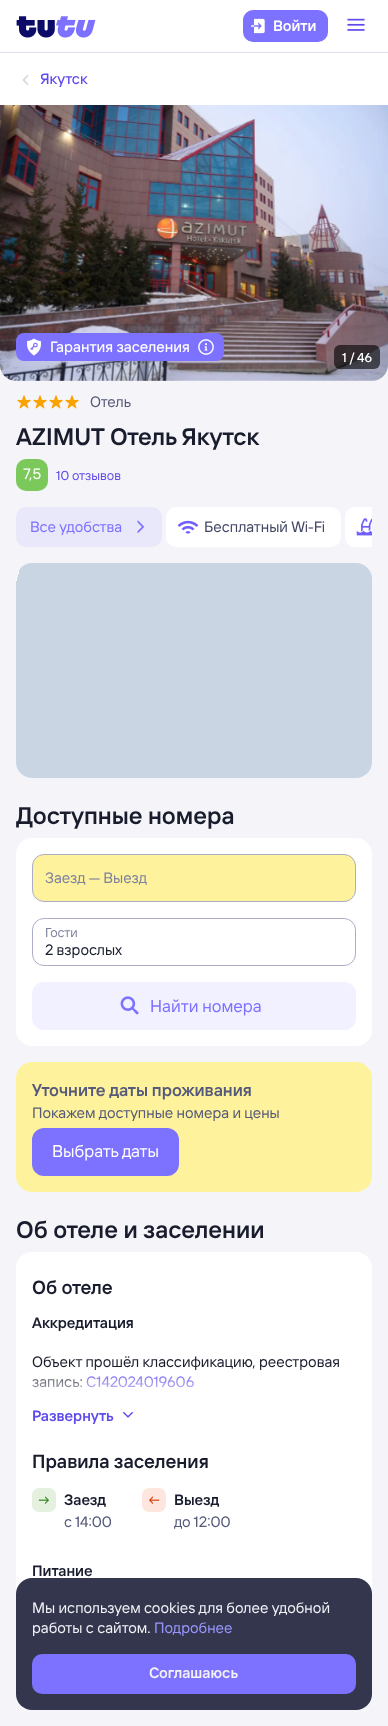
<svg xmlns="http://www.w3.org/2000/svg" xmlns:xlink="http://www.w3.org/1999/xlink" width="388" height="1726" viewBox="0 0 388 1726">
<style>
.cls-1{font:600 15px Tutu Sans;fill:#ffffff}
.cls-2{font:500 15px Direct;fill:#5f4aed}
.cls-3{font:500 15px Direct;fill:#ffffff}
.cls-4{font:500 13px Direct;fill:#ffffff}
.cls-5{font:15px Tutu Sans;fill:#555a7a}
.cls-6{font:600 24px Tutu Sans;fill:#181c2d}
.cls-7{font:15px Tutu Sans;fill:#ffffff}
.cls-8{font:13px Tutu Sans;fill:#5f4aed}
.cls-9{font:15px Tutu Sans;fill:#7d71ff}
.cls-10{font:15px Tutu Sans;fill:#434765}
.cls-11{font:15px Tutu Sans;fill:#7d82a0}
.cls-12{font:13px Tutu Sans;fill:#7d82a0}
.cls-13{font:15px Tutu Sans;fill:#181c2d}
.cls-14{font:17px Tutu Sans;fill:#7d71ff}
.cls-15{font:600 17px Tutu Sans;fill:#555a7a}
.cls-16{font:17px Tutu Sans;fill:#ffffff}
.cls-17{font:600 19px Tutu Sans;fill:#181c2d}
.cls-18{font:600 15px Tutu Sans;fill:#181c2d}
.cls-19{font:15px Tutu Sans;fill:#5f4aed}
.cls-20{font:600 15px Tutu Sans;fill:#5f4aed}
.cls-21{font:15px Tutu Sans;fill:#f2f2f7}
.cls-22{font:15px Tutu Sans;fill:#9996ff}
.cls-23{font:600 15px Tutu Sans;fill:#f2f2f7}
</style>
<defs>
<linearGradient id="g1" gradientUnits="userSpaceOnUse" x1="-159" y1="619" x2="227" y2="722"><stop offset="0.3" stop-color="#ffffff" stop-opacity="0"/><stop offset="0.4" stop-color="#ffffff" stop-opacity="0.9"/><stop offset="0.4" stop-color="#ffffff" stop-opacity="0"/></linearGradient>
<linearGradient id="g2" gradientUnits="userSpaceOnUse" x1="194" y1="1366" x2="194" y2="1406"><stop offset="0" stop-color="#ffffff" stop-opacity="0"/><stop offset="1" stop-color="#ffffff"/></linearGradient>
</defs>
<rect width="100%" height="100%" fill="#f5f5f9"/>
<rect fill="#ffffff" x="0" y="0" width="388" height="52"/>
<rect fill="#dddfea" x="0" y="52" width="388" height="1"/>
<image xlink:href="image0.png" x="16" y="16" width="80" height="22"/>
<rect fill="#7d71ff" x="243" y="10" width="85" height="32" rx="10"/>
<image xlink:href="image1.png" x="251" y="18" width="14" height="16"/>
<image xlink:href="image2.png" x="347" y="18" width="18" height="13"/>
<rect fill="#ffffff" x="0" y="53" width="388" height="52"/>
<image xlink:href="image3.png" x="22" y="74" width="6" height="12"/>
<path fill="#ffffff" d="M0 105H388V365C388 374 381 381 372 381H16C7 381 0 374 0 365Z"/>
<image xlink:href="image6.png" x="0" y="105" width="388" height="276"/>
<rect fill="#7d71ff" x="16" y="333" width="208" height="28" rx="8"/>
<image xlink:href="image4.png" x="27" y="338" width="14" height="18"/>
<image xlink:href="image5.png" x="198" y="339" width="16" height="16"/>
<rect fill="#000000" fill-opacity="0.6" x="334" y="345" width="46" height="24" rx="6"/>
<image xlink:href="image7.png" x="17" y="395" width="14" height="14"/>
<image xlink:href="image7.png" x="33" y="395" width="14" height="14"/>
<image xlink:href="image7.png" x="49" y="395" width="14" height="14"/>
<image xlink:href="image7.png" x="65" y="395" width="14" height="14"/>
<rect fill="#7bc95a" x="16" y="459" width="32" height="32" rx="10"/>
<rect fill="#e9e8fa" x="16" y="507" width="146" height="40" rx="10"/>
<image xlink:href="image8.png" x="137" y="520" width="8" height="13"/>
<rect fill="#ffffff" x="166" y="507" width="175" height="40" rx="10"/>
<image xlink:href="image9.png" x="177" y="520" width="22" height="14"/>
<path fill="#ffffff" d="M355 507H372V547H355C349.5 547 345 542.5 345 537V517C345 511.5 349.5 507 355 507Z"/>
<image xlink:href="image10.png" x="356" y="518" width="16" height="18"/>
<rect fill="#cad5e3" x="16" y="563" width="356" height="215" rx="16"/>
<path fill="url(#g1)" d="M32 563H212V778H32C23 778 16 771 16 762V579C16 570 23 563 32 563Z"/>
<rect fill="#ffffff" x="16" y="838" width="356" height="208" rx="16"/>
<rect fill="#fff29c" stroke="#abadc7" x="32.5" y="854.5" width="323" height="47" rx="11.5"/>
<rect fill="none" stroke="#abadc7" x="32.5" y="918.5" width="323" height="47" rx="11.5"/>
<rect fill="#f2f1ff" x="32" y="982" width="324" height="48" rx="12"/>
<image xlink:href="image11.png" x="120" y="996" width="19" height="19"/>
<rect fill="#fff29c" x="16" y="1062" width="356" height="130" rx="16"/>
<rect fill="#7d71ff" x="32" y="1128" width="147" height="48" rx="12"/>
<rect fill="#ffffff" x="16" y="1252" width="356" height="438" rx="16"/>
<image xlink:href="image12.png" x="122" y="1412" width="12" height="6"/>
<rect fill="#e4f1df" x="32" y="1488" width="24" height="24" rx="7"/>
<image xlink:href="image13.png" x="38" y="1496" width="11" height="8"/>
<rect fill="#fde6de" x="142" y="1488" width="24" height="24" rx="7"/>
<image xlink:href="image14.png" x="149" y="1496" width="11" height="8"/>
<rect fill="#33364d" x="16" y="1578" width="356" height="132" rx="16"/>
<rect fill="#7d71ff" x="32" y="1654" width="324" height="40" rx="10"/>
<text class="cls-1" x="273" y="31">Войти</text>
<text class="cls-2" x="40" y="84">Якутск</text>
<text class="cls-3" x="50" y="352">Гарантия заселения</text>
<text class="cls-4" x="342" y="362">1 / 46</text>
<text class="cls-5" x="90" y="407">Отель</text>
<text class="cls-6" x="16" y="445">AZIMUT Отель Якутск</text>
<text class="cls-7" x="23" y="479">7,5</text>
<text class="cls-8" x="56" y="480">10 отзывов</text>
<text class="cls-9" x="30" y="532">Все удобства</text>
<text class="cls-10" x="204" y="532">Бесплатный Wi-Fi</text>
<text class="cls-6" x="16" y="824">Доступные номера</text>
<text class="cls-11" x="45" y="883">Заезд — Выезд</text>
<text class="cls-12" x="45" y="937">Гости</text>
<text class="cls-13" x="45" y="955">2 взрослых</text>
<text class="cls-14" x="150" y="1012">Найти номера</text>
<text class="cls-15" x="32" y="1096">Уточните даты проживания</text>
<text class="cls-5" x="32" y="1118">Покажем доступные номера и цены</text>
<text class="cls-16" x="52" y="1157">Выбрать даты</text>
<text class="cls-6" x="16" y="1238">Об отеле и заселении</text>
<text class="cls-17" x="32" y="1294">Об отеле</text>
<text class="cls-18" x="32" y="1328">Аккредитация</text>
<text class="cls-13"><tspan x="32" y="1367">Объект прошёл классификацию, реестровая</tspan><tspan x="32" y="1387">запись:</tspan></text>
<text class="cls-19" x="86" y="1387">С142024019606</text>
<rect fill="url(#g2)" x="32" y="1367" width="270" height="21"/>
<text class="cls-20" x="32" y="1421">Развернуть</text>
<text class="cls-17" x="32" y="1468">Правила заселения</text>
<text class="cls-18" x="64" y="1505">Заезд</text>
<text class="cls-5" x="64" y="1527">с 14:00</text>
<text class="cls-18" x="174" y="1505">Выезд</text>
<text class="cls-5" x="174" y="1527">до 12:00</text>
<text class="cls-18" x="32" y="1576">Питание</text>
<text class="cls-21"><tspan x="32" y="1613">Мы используем cookies для более удобной</tspan><tspan x="32" y="1633">работы с сайтом.</tspan></text>
<text class="cls-22" x="154" y="1633">Подробнее</text>
<text class="cls-23" x="149" y="1678">Соглашаюсь</text>
</svg>
